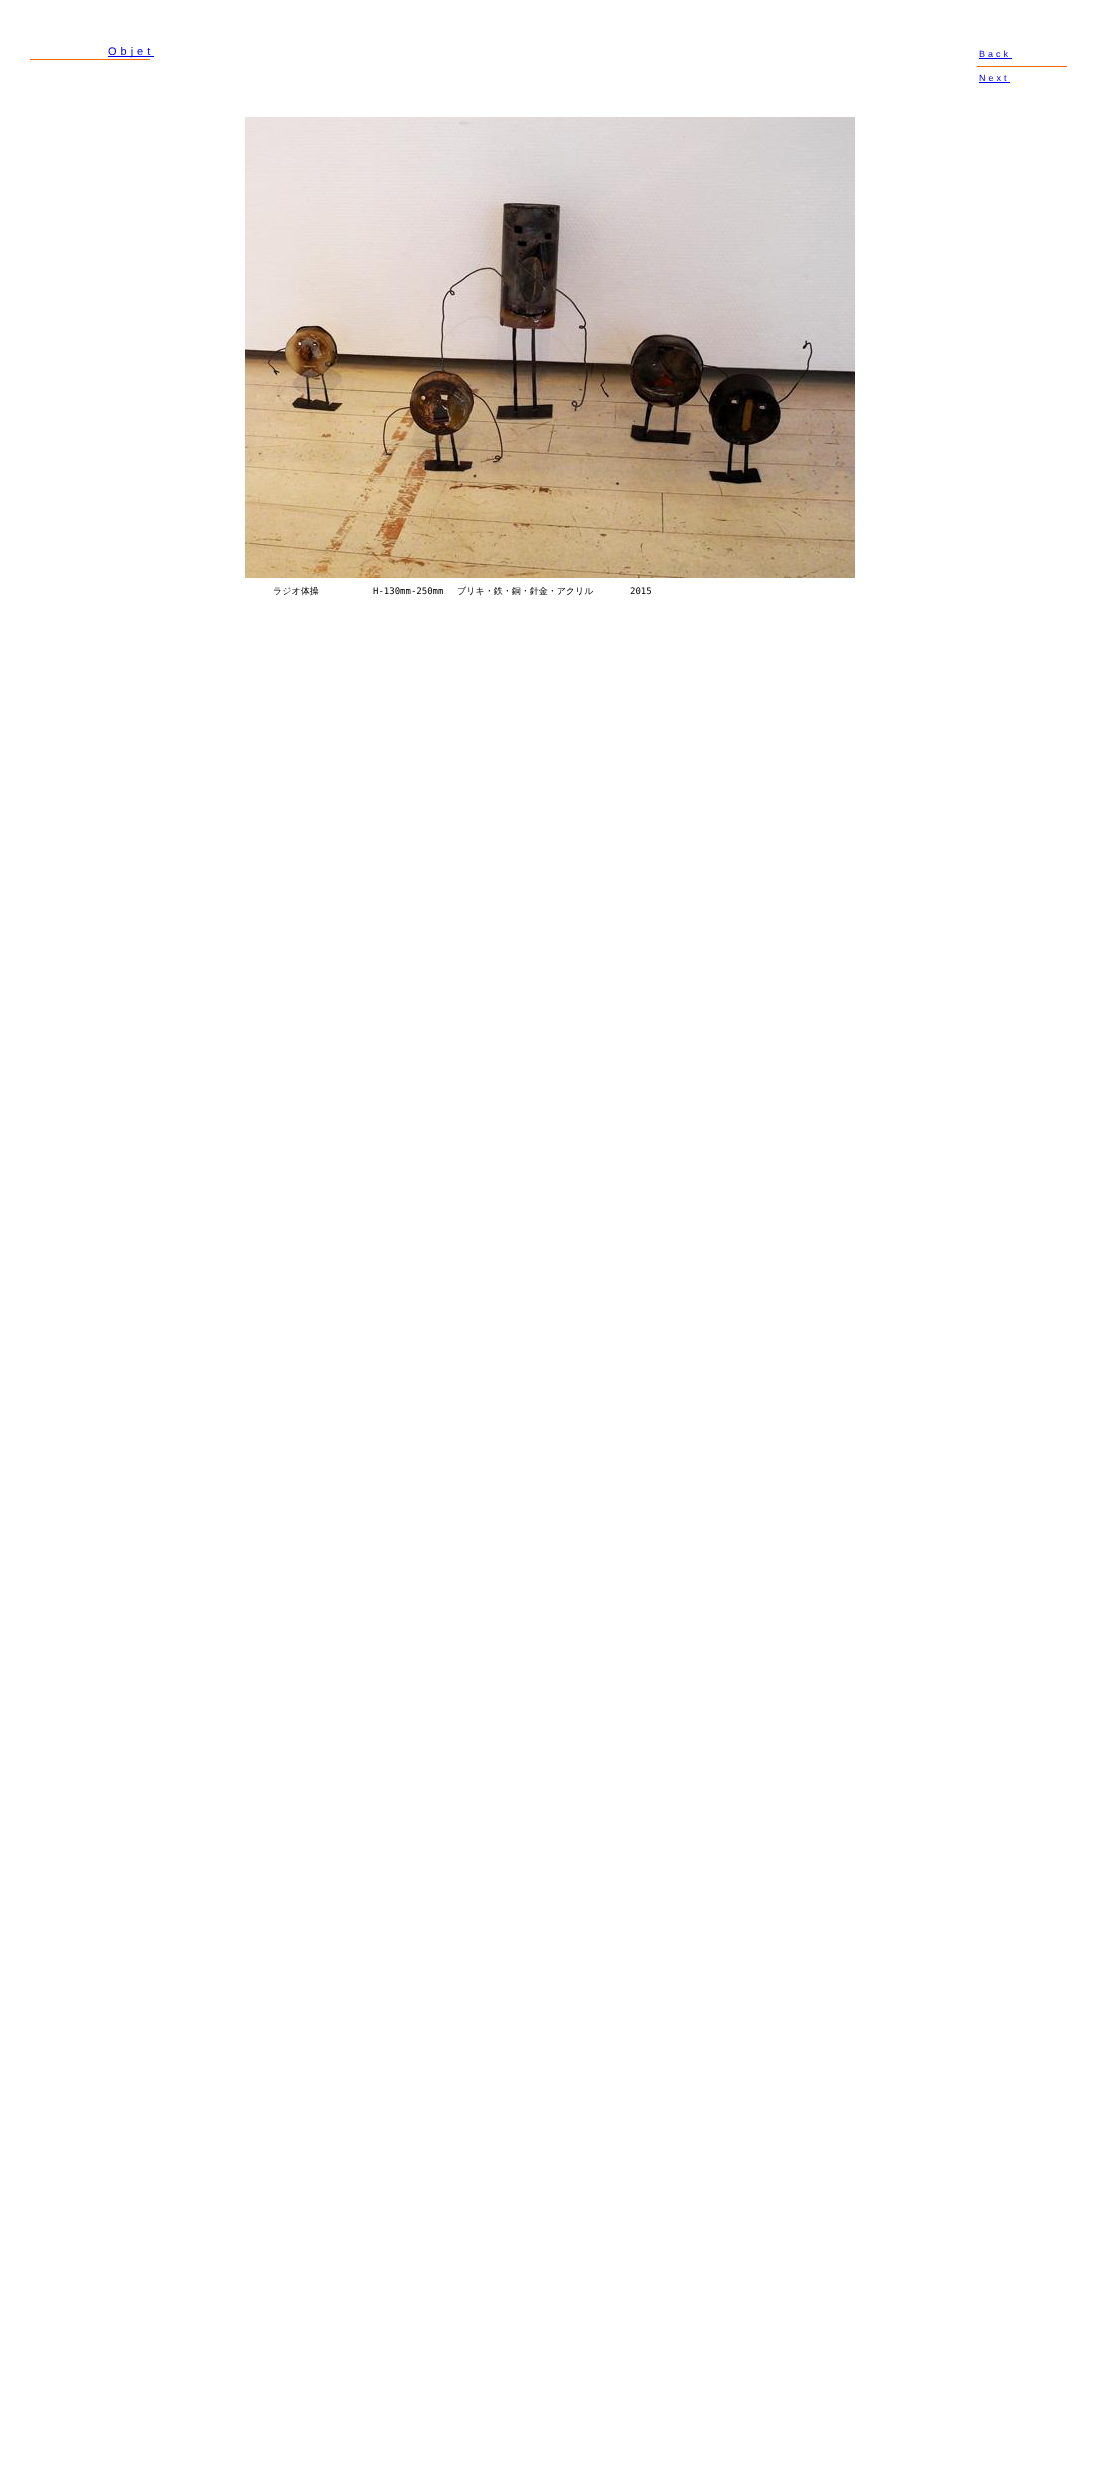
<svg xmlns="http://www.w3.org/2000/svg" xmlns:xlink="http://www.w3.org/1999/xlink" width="1103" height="2479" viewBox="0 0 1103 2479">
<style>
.cls-1{font:11px Liberation Sans;letter-spacing:4px;fill:#0000ee}
.cls-2{font:9px Liberation Sans;letter-spacing:3px;fill:#0000ee}
.cls-3{font:500 9px WenQuanYi Zen Hei;fill:#000000}
.cls-4{font:9px DejaVu Sans Mono;fill:#000000}
</style>
<rect width="100%" height="100%" fill="#ffffff"/>
<rect fill="#0000ee" x="108" y="56" width="46" height="1"/>
<rect fill="#0000ee" x="979" y="58" width="33" height="1"/>
<rect fill="#ff6600" x="30" y="59" width="120" height="1"/>
<rect fill="#ff6600" x="977" y="66" width="90" height="1"/>
<rect fill="#0000ee" x="979" y="82" width="31" height="1"/>
<image xlink:href="image0.png" x="245" y="117" width="610" height="461"/>
<text class="cls-1" x="108" y="55">Objet</text>
<text class="cls-2" x="979" y="57">Back</text>
<text class="cls-2" x="979" y="81">Next</text>
<text class="cls-3" x="273" y="594">ラジオ体操</text>
<text class="cls-4" x="373" y="594">H-130mm-250mm</text>
<text class="cls-3" x="457" y="594">ブリキ・鉄・銅・針金・アクリル</text>
<text class="cls-4" x="630" y="594">2015</text>
</svg>
